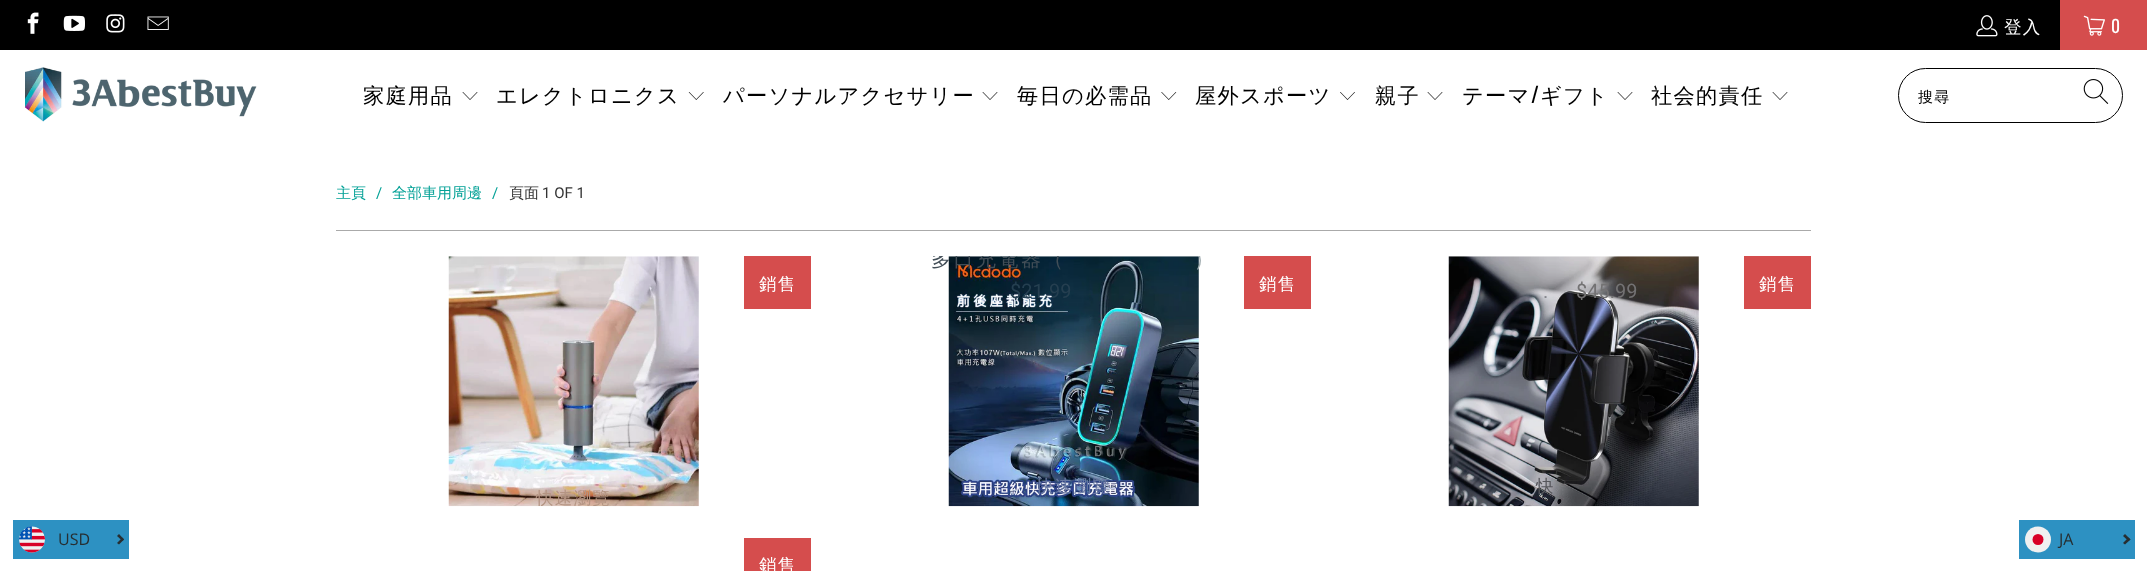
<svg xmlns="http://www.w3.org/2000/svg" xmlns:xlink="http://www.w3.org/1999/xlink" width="2147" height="571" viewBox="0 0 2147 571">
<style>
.cls-1{font:500 17.5px WenQuanYi Zen Hei;letter-spacing:1.25px;fill:#ffffff}
.cls-2{font:17.5px Oswald;letter-spacing:1.25px;fill:#ffffff}
.cls-3{font:500 21.25px WenQuanYi Zen Hei;letter-spacing:1.25px;fill:#000000}
.cls-4{font:21.25px Oswald;letter-spacing:1.25px;fill:#000000}
.cls-5{font:500 15px WenQuanYi Zen Hei;letter-spacing:1.25px;fill:#000000}
.cls-6{font:16px Open Sans;fill:#272e31}
.cls-7{font:500 15px WenQuanYi Zen Hei;fill:#03a196}
.cls-8{font:15px Roboto;fill:#03a196}
.cls-9{font:500 15px WenQuanYi Zen Hei;fill:#333333}
.cls-10{font:15px Roboto;fill:#333333}
.cls-11{font:500 17.5px WenQuanYi Zen Hei;letter-spacing:1.25px;fill:#b49483}
.cls-12{font:500 20px WenQuanYi Zen Hei;letter-spacing:2.5px;fill:#424e57}
.cls-13{font:500 20px WenQuanYi Zen Hei;letter-spacing:2.5px;fill:#a7b2b5}
.cls-14{font:20px Roboto;fill:#253f50}
.cls-15{font:500 17.5px WenQuanYi Zen Hei;letter-spacing:1.25px;fill:#6979a2}
.cls-16{font:20px Roboto;fill:#85868c}
.cls-17{font:20px Roboto;fill:#737273}
.cls-18{font:500 17.5px WenQuanYi Zen Hei;letter-spacing:1.25px;fill:#56565b}
</style>
<defs>
<clipPath id="clip1"><rect x="1918" y="85" width="160" height="24"/></clipPath>
<clipPath id="clip2"><rect x="336" y="256" width="475" height="250"/></clipPath>
<clipPath id="clip3"><rect x="836" y="256" width="475" height="250"/></clipPath>
</defs>
<rect width="100%" height="100%" fill="#ffffff"/>
<rect fill="#000000" x="0" y="0" width="2060" height="50"/>
<image xlink:href="image0.png" x="27" y="12" width="12" height="22"/>
<image xlink:href="image1.png" x="63" y="15" width="22" height="16"/>
<image xlink:href="image2.png" x="106" y="14" width="19" height="19"/>
<image xlink:href="image3.png" x="147" y="16" width="22" height="14"/>
<image xlink:href="image4.png" x="1976" y="15" width="22" height="22"/>
<rect fill="#d54d4d" x="2060" y="0" width="87" height="50"/>
<image xlink:href="image5.png" x="2083" y="15" width="22" height="21"/>
<image xlink:href="image6.png" x="25" y="67" width="232" height="55"/>
<image xlink:href="image7.png" x="462" y="92" width="16" height="8"/>
<image xlink:href="image8.png" x="688" y="92" width="16" height="8"/>
<image xlink:href="image7.png" x="982" y="92" width="16" height="8"/>
<image xlink:href="image9.png" x="1161" y="92" width="16" height="8"/>
<image xlink:href="image10.png" x="1340" y="92" width="15" height="8"/>
<image xlink:href="image7.png" x="1427" y="92" width="16" height="8"/>
<image xlink:href="image7.png" x="1617" y="92" width="16" height="8"/>
<image xlink:href="image7.png" x="1772" y="92" width="16" height="8"/>
<rect fill="none" stroke="#000000" x="1898.5" y="68.5" width="224" height="54" rx="27"/>
<image xlink:href="image11.png" x="2083" y="79" width="26" height="25"/>
<rect fill="#2d91c2" x="13" y="520" width="116" height="39"/>
<image xlink:href="image12.png" x="19" y="526" width="26" height="27"/>
<path fill="#272e31" d="M119 534L124 539.5L122.5 541L117 536Z"/>
<path fill="#272e31" d="M122.5 537.5L124 539.5L119 544.5L117 543Z"/>
<rect fill="#aaaaaa" x="336" y="230" width="1475" height="1"/>
<image xlink:href="image13.png" x="448" y="256" width="251" height="251"/>
<rect fill="#d54d4d" x="744" y="256" width="67" height="53"/>
<image xlink:href="image14.png" x="948" y="256" width="251" height="251"/>
<rect fill="#d54d4d" x="1244" y="256" width="67" height="53"/>
<image xlink:href="image15.png" x="1448" y="256" width="251" height="251"/>
<rect fill="#d54d4d" x="1744" y="256" width="67" height="53"/>
<rect fill="#d54d4d" x="744" y="538" width="67" height="33"/>
<rect fill="#2d91c2" x="2019" y="520" width="116" height="39"/>
<circle fill="#f0f0f0" cx="2038" cy="539.5" r="13"/>
<circle fill="#d80027" cx="2038" cy="539.5" r="5.5"/>
<path fill="#272e31" d="M2125 534L2130.5 539.5L2128.5 541L2123 536Z"/>
<path fill="#272e31" d="M2128.5 537.5L2130.5 539.5L2125 544.5L2123 543Z"/>
<text class="cls-1" x="2004" y="33">登入</text>
<text class="cls-2" x="2111" y="33">0</text>
<text class="cls-3" x="363" y="103">家庭用品</text>
<text class="cls-3" x="496" y="103">エレクトロニクス</text>
<text class="cls-3" x="723" y="103">パーソナルアクセサリー</text>
<text class="cls-3" x="1017" y="103">毎日の必需品</text>
<text class="cls-3" x="1195" y="103">屋外スポーツ</text>
<text class="cls-3" x="1375" y="103">親子</text>
<text class="cls-3" x="1462" y="103">テーマ</text>
<text class="cls-4" x="1531" y="103">/</text>
<text class="cls-3" x="1540" y="103">ギフト</text>
<text class="cls-3" x="1651" y="103">社会的責任</text>
<g clip-path="url(#clip1)">
<text class="cls-5" x="1918" y="102">搜尋</text>
</g>
<text class="cls-6" x="58" y="545">USD</text>
<text class="cls-7" x="336" y="198">主頁</text>
<text class="cls-8" x="376" y="198">/</text>
<text class="cls-7" x="392" y="198">全部車用周邊</text>
<text class="cls-8" x="492" y="198">/</text>
<text class="cls-9" x="509" y="198">頁面</text>
<text class="cls-10" x="542" y="198">1 OF 1</text>
<text class="cls-1" x="759" y="290">銷售</text>
<g clip-path="url(#clip2)">
<text class="cls-11" x="536" y="504">快速瀏覽</text>
</g>
<g clip-path="url(#clip3)">
<text class="cls-12" x="931" y="266">多口充電器（</text>
<text class="cls-13" x="1194" y="266">）</text>
</g>
<text class="cls-14" x="1010" y="298">$21.99</text>
<text class="cls-15" x="1036" y="492">快速瀏覽</text>
<text class="cls-1" x="1259" y="290">銷售</text>
<text class="cls-1" x="1759" y="290">銷售</text>
<text class="cls-16" x="1543" y="298">.</text>
<text class="cls-17" x="1576" y="298">$45.99</text>
<text class="cls-18" x="1536" y="492">快</text>
<text class="cls-1" x="759" y="571">銷售</text>
<text class="cls-6" x="2059" y="545">JA</text>
</svg>
